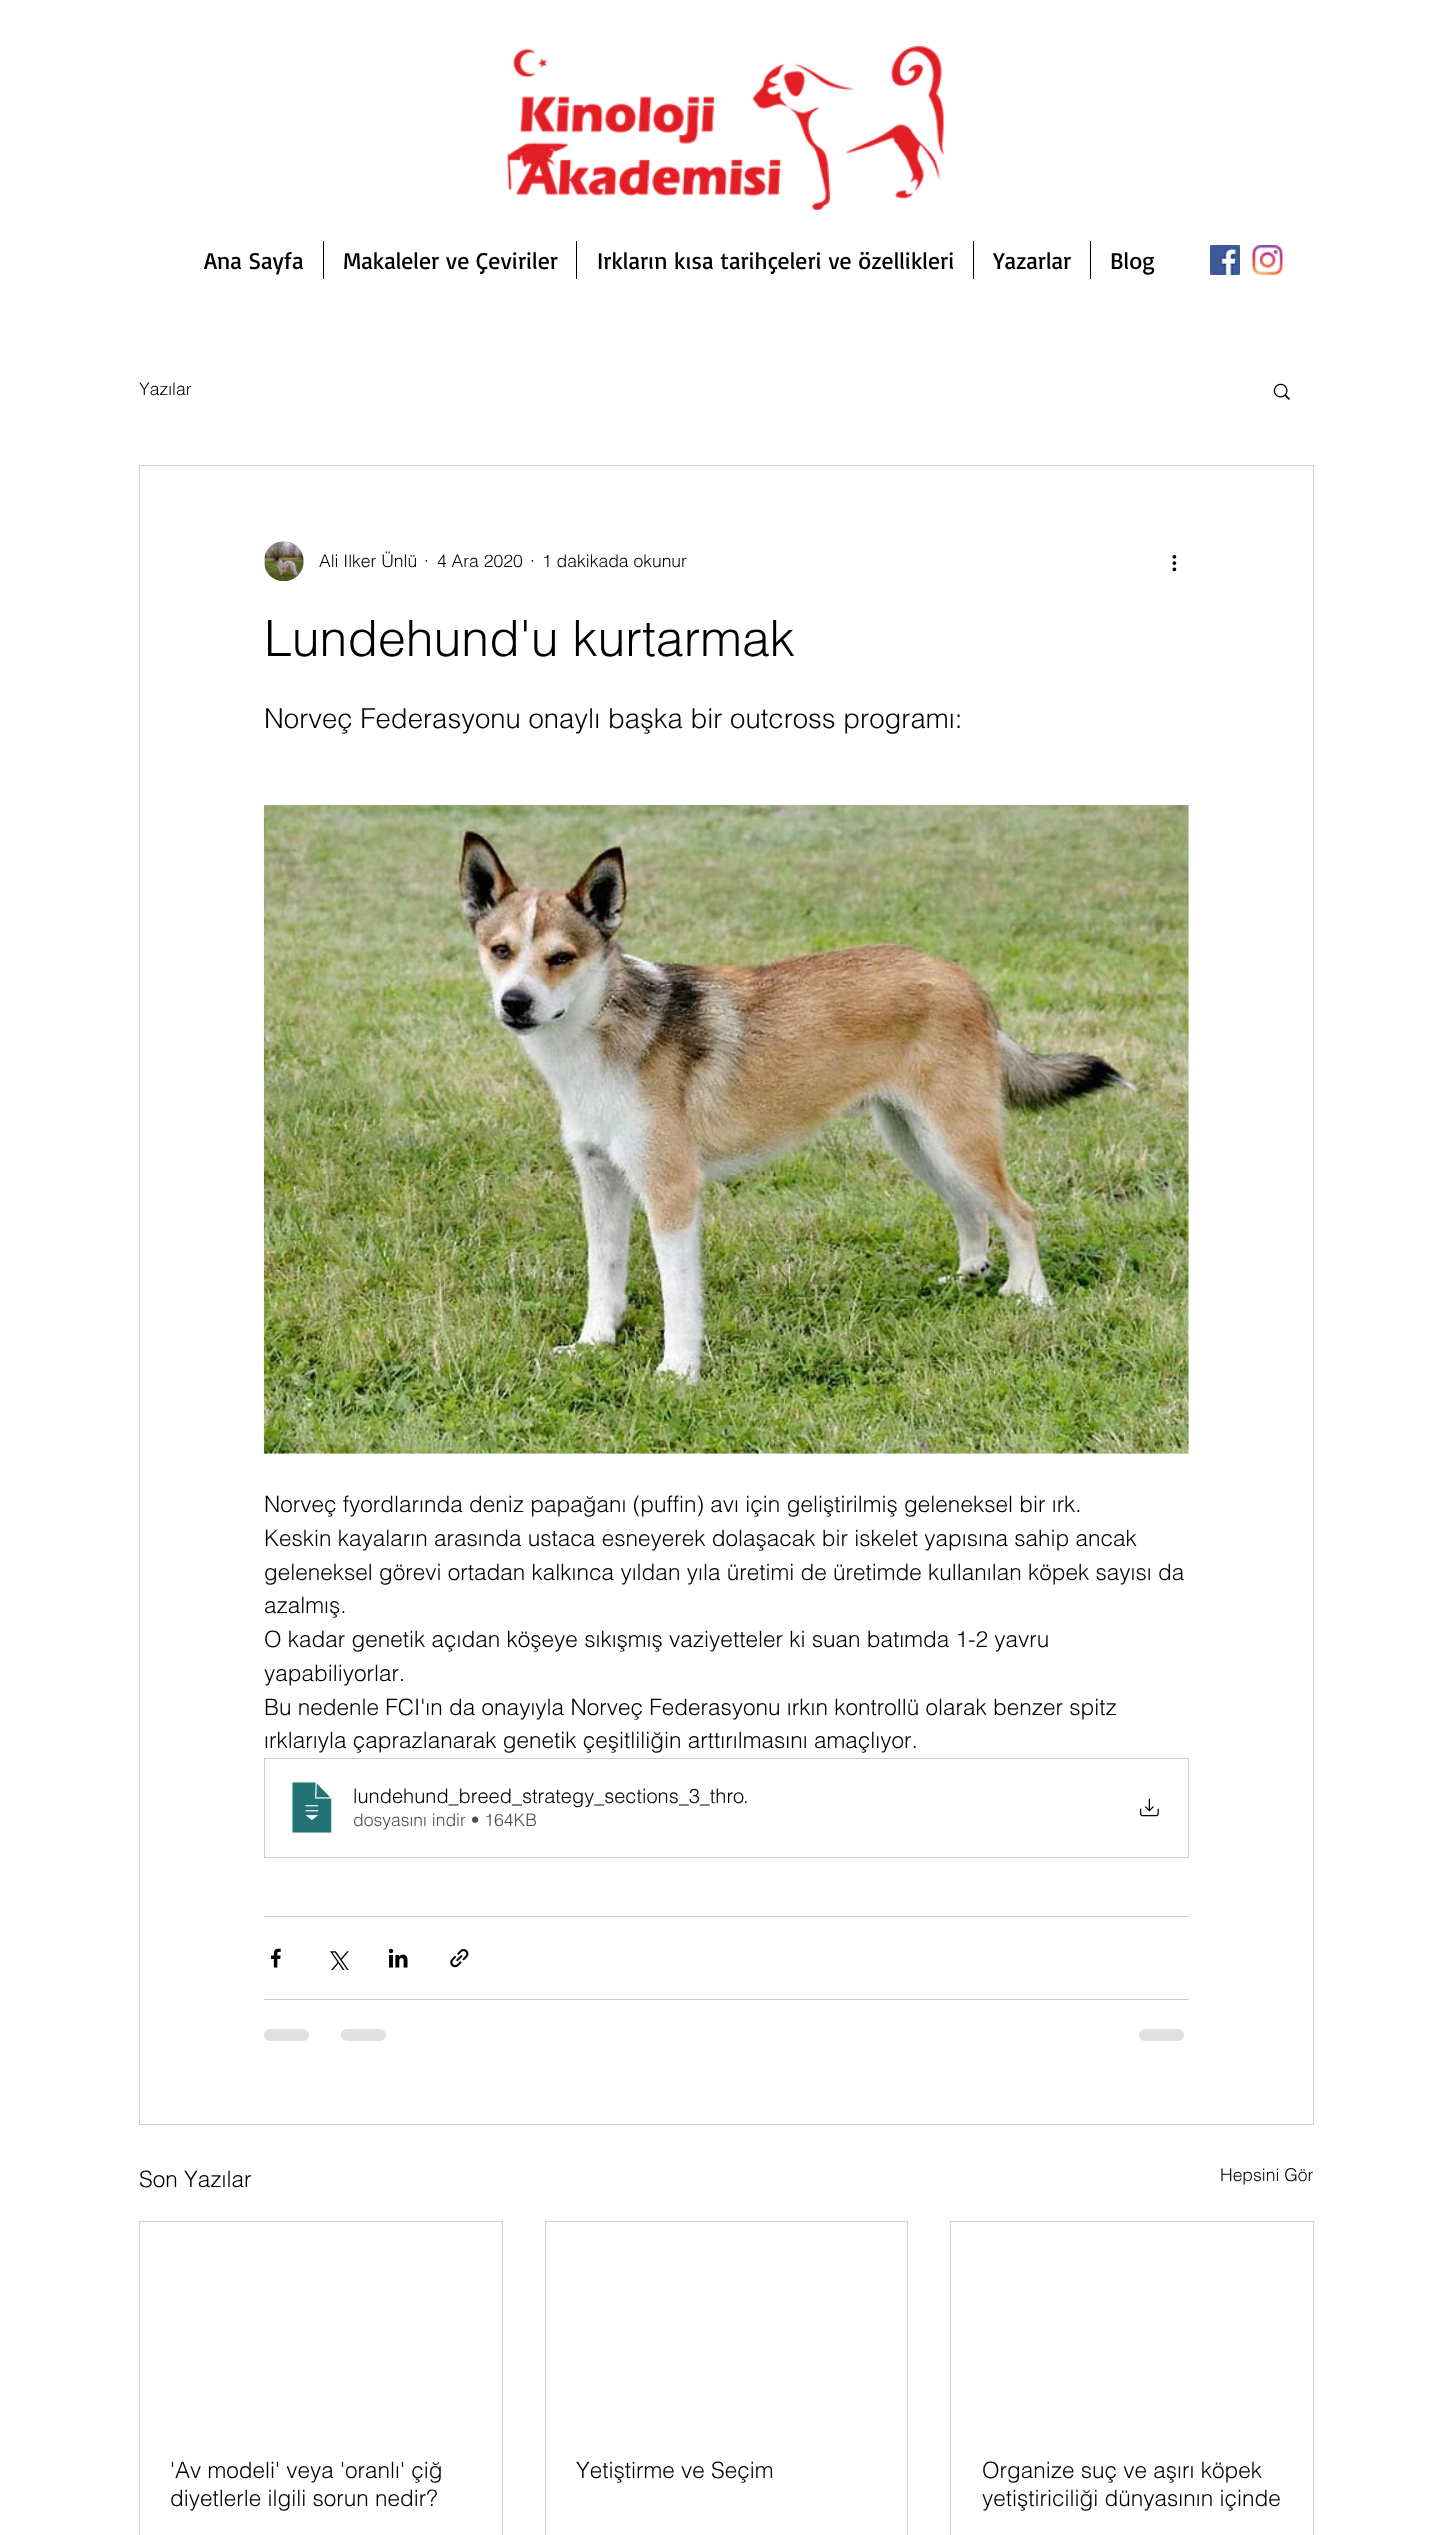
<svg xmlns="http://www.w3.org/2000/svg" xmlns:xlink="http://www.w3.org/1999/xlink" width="1452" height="2535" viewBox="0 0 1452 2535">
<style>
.cls-1{font:23.75px Basic;fill:#000000}
.cls-2{font:300 17.5px helvetica;fill:#000000}
.cls-3{font:300 50px helvetica;fill:#000000}
.cls-4{font:300 27.5px helvetica;fill:#000000}
.cls-5{font:300 22.5px helvetica;fill:#000000}
.cls-6{font:300 20px helvetica;fill:#000000}
.cls-7{font:300 17.5px helvetica;fill:#4d4d4d}
</style>
<rect width="100%" height="100%" fill="#ffffff"/>
<image xlink:href="image0.png" x="507" y="46" width="437" height="164"/>
<rect fill="#000000" x="323" y="241" width="1" height="38"/>
<rect fill="#000000" x="576" y="241" width="1" height="38"/>
<rect fill="#000000" x="973" y="241" width="1" height="38"/>
<rect fill="#000000" x="1090" y="241" width="1" height="38"/>
<image xlink:href="image1.png" x="1210" y="245" width="30" height="30"/>
<image xlink:href="image2.png" x="1252" y="245" width="31" height="30"/>
<image xlink:href="image3.png" x="1273" y="383" width="17" height="17"/>
<rect fill="none" stroke="#cfcfcf" x="139.5" y="465.5" width="1174" height="1659"/>
<image xlink:href="image4.png" x="264" y="541" width="40" height="41"/>
<image xlink:href="image5.png" x="1172" y="555" width="5" height="17"/>
<image xlink:href="image6.png" x="263" y="805" width="926" height="649"/>
<rect fill="none" stroke="#cccccc" x="264.5" y="1758.5" width="924" height="99"/>
<image xlink:href="image7.png" x="291" y="1781" width="41" height="53"/>
<image xlink:href="image8.png" x="1140" y="1798" width="19" height="19"/>
<rect fill="#cccccc" x="264" y="1916" width="925" height="1"/>
<image xlink:href="image9.png" x="271" y="1948" width="10" height="20"/>
<image xlink:href="image10.png" x="330" y="1951" width="19" height="19"/>
<image xlink:href="image11.png" x="388" y="1948" width="20" height="20"/>
<image xlink:href="image12.png" x="450" y="1949" width="19" height="19"/>
<rect fill="#cccccc" x="264" y="1999" width="925" height="1"/>
<rect fill="#e0e0e0" x="264" y="2029" width="45" height="12" rx="6"/>
<rect fill="#e0e0e0" x="341" y="2029" width="45" height="12" rx="6"/>
<rect fill="#e0e0e0" x="1139" y="2029" width="45" height="12" rx="6"/>
<rect fill="none" stroke="#cfcfcf" x="139.5" y="2221.5" width="363" height="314"/>
<rect fill="none" stroke="#cfcfcf" x="545.5" y="2221.5" width="362" height="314"/>
<rect fill="none" stroke="#cfcfcf" x="950.5" y="2221.5" width="363" height="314"/>
<text class="cls-1" x="204" y="269">Ana Sayfa</text>
<text class="cls-1" x="343" y="269">Makaleler ve Çeviriler</text>
<text class="cls-1" x="597" y="269">Irkların kısa tarihçeleri ve özellikleri</text>
<text class="cls-1" x="993" y="269">Yazarlar</text>
<text class="cls-1" x="1110" y="269">Blog</text>
<text class="cls-2" x="139" y="395">Yazılar</text>
<text class="cls-2" x="319" y="567">Ali Ilker Ünlü</text>
<text class="cls-2" x="424" y="567">·</text>
<text class="cls-2" x="437" y="567">4 Ara 2020</text>
<text class="cls-2" x="530" y="567">·</text>
<text class="cls-2" x="542" y="567">1 dakikada okunur</text>
<text class="cls-3" x="264" y="656">Lundehund'u kurtarmak</text>
<text class="cls-4" x="264" y="728">Norveç Federasyonu onaylı başka bir outcross programı:</text>
<text class="cls-5"><tspan x="264" y="1512">Norveç fyordlarında deniz papağanı (puffin) avı için geliştirilmiş geleneksel bir ırk.</tspan><tspan x="264" y="1546">Keskin kayaların arasında ustaca esneyerek dolaşacak bir iskelet yapısına sahip ancak</tspan><tspan x="264" y="1580">geleneksel görevi ortadan kalkınca yıldan yıla üretimi de üretimde kullanılan köpek sayısı da</tspan><tspan x="264" y="1613">azalmış.</tspan><tspan x="264" y="1647">O kadar genetik açıdan köşeye sıkışmış vaziyetteler ki suan batımda 1-2 yavru</tspan><tspan x="264" y="1681">yapabiliyorlar.</tspan><tspan x="264" y="1715">Bu nedenle FCI'ın da onayıyla Norveç Federasyonu ırkın kontrollü olarak benzer spitz</tspan><tspan x="264" y="1748">ırklarıyla çaprazlanarak genetik çeşitliliğin arttırılmasını amaçlıyor.</tspan></text>
<text class="cls-6" x="353" y="1803">lundehund_breed_strategy_sections_3_thro</text>
<text class="cls-6" x="743" y="1803">.</text>
<text class="cls-7" x="353" y="1826">dosyasını indir • 164KB</text>
<text class="cls-5" x="139" y="2187">Son Yazılar</text>
<text class="cls-2" x="1220" y="2181">Hepsini Gör</text>
<text class="cls-5"><tspan x="170" y="2478">'Av modeli' veya 'oranlı' çiğ</tspan><tspan x="170" y="2506">diyetlerle ilgili sorun nedir?</tspan></text>
<text class="cls-5" x="576" y="2478">Yetiştirme ve Seçim</text>
<text class="cls-5"><tspan x="982" y="2478">Organize suç ve aşırı köpek</tspan><tspan x="982" y="2506">yetiştiriciliği dünyasının içinde</tspan></text>
</svg>
